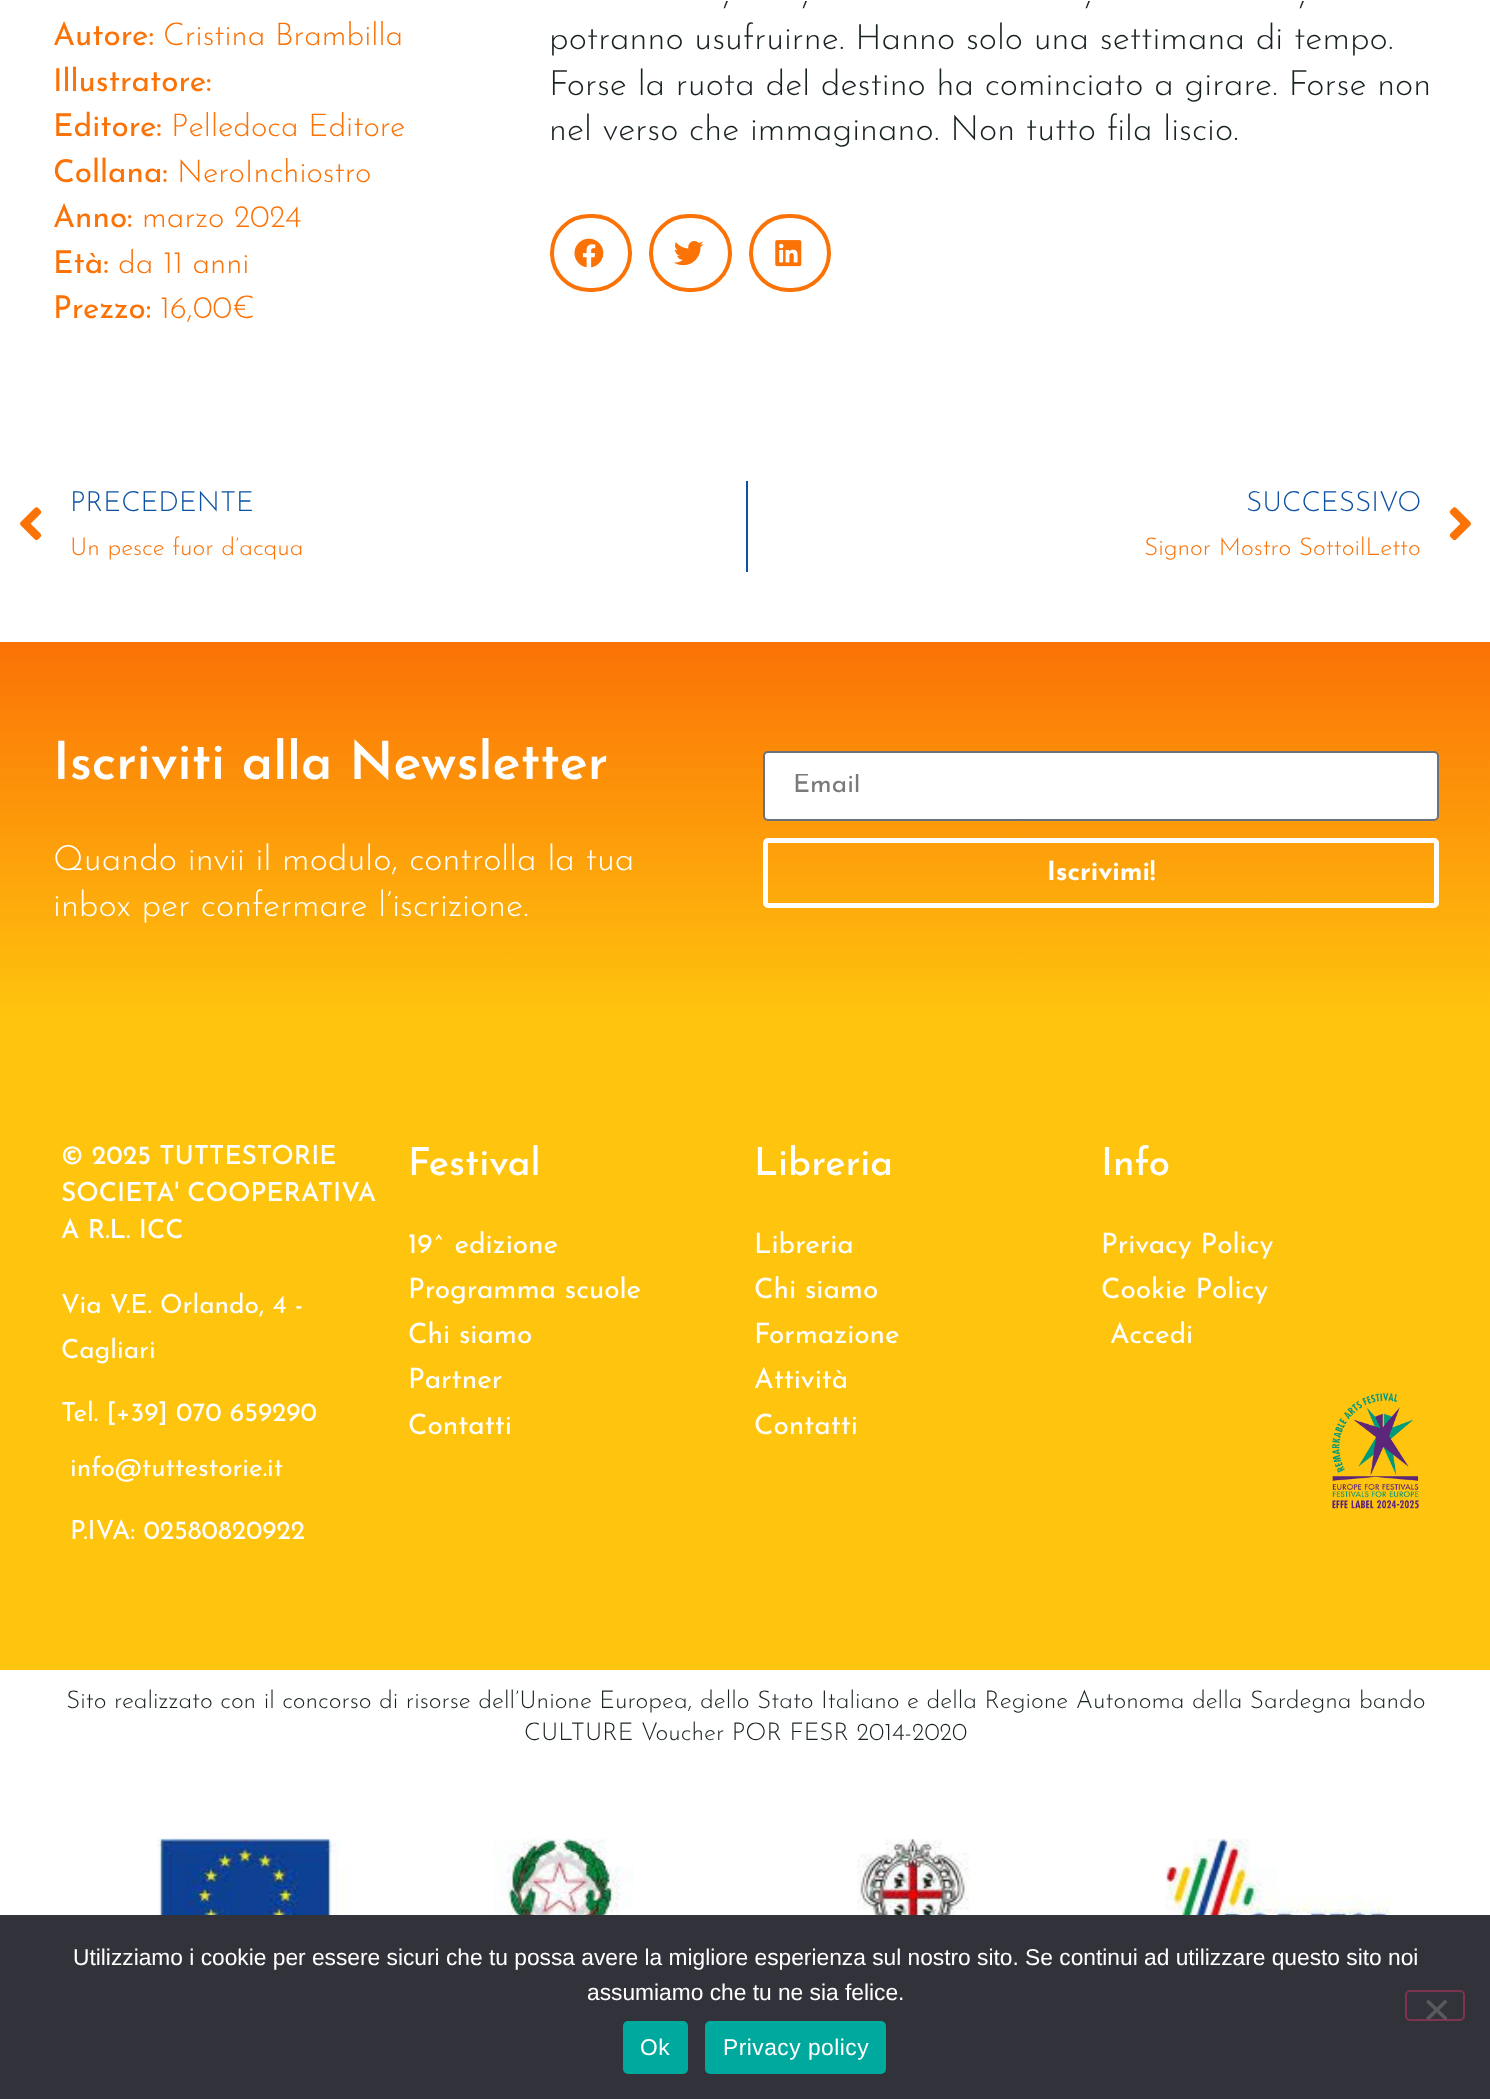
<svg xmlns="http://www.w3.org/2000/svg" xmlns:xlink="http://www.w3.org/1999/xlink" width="1490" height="2099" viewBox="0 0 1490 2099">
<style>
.cls-1{font:31.5px Josefin Sans;fill:#fb7206}
.cls-2{font:300 31.5px Josefin Sans;fill:#fb7206}
.cls-3{font:300 35px Josefin Sans;fill:#192223}
.cls-4{font:300 28px Josefin Sans;fill:#0d51a4}
.cls-5{font:300 24.5px Josefin Sans;fill:#fb7206}
.cls-6{font:600 52.5px Josefin Sans;fill:#ffffff}
.cls-7{font:300 35px Josefin Sans;fill:#ffffff}
.cls-8{font:26.25px Josefin Sans;fill:#797a7c}
.cls-9{font:bold 26.25px Josefin Sans;fill:#ffffff}
.cls-10{font:500 26.25px Josefin Sans;fill:#ffffff}
.cls-11{font:26.25px Josefin Sans;fill:#ffffff}
.cls-12{font:500 38.5px Josefin Sans;fill:#ffffff}
.cls-13{font:28px Josefin Sans;fill:#ffffff}
.cls-14{font:300 24.5px Josefin Sans;fill:#192223}
.cls-15{font:22.75px Liberation Sans;fill:#ffffff}
.cls-16{font:22.75px Liberation Sans;letter-spacing:0.5px;fill:#ffffff}
</style>
<defs>
<linearGradient id="g1" gradientUnits="userSpaceOnUse" x1="746" y1="642" x2="746" y2="1017"><stop offset="0" stop-color="#fb7206"/><stop offset="1" stop-color="#ffc40e"/></linearGradient>
<clipPath id="clip1"><rect x="793" y="774" width="616" height="26"/></clipPath>
</defs>
<rect width="100%" height="100%" fill="#ffffff"/>
<rect fill="none" stroke="#fb7206" stroke-width="4" x="552" y="216" width="78" height="74" rx="37"/>
<image xlink:href="image0.png" x="574" y="238" width="30" height="30"/>
<rect fill="none" stroke="#fb7206" stroke-width="4" x="651" y="216" width="79" height="74" rx="37"/>
<image xlink:href="image1.png" x="674" y="241" width="30" height="25"/>
<rect fill="none" stroke="#fb7206" stroke-width="4" x="751" y="216" width="78" height="74" rx="37"/>
<image xlink:href="image2.png" x="775" y="240" width="27" height="27"/>
<image xlink:href="image3.png" x="20" y="507" width="22" height="34"/>
<rect fill="#0d51a4" x="746" y="481" width="2" height="91"/>
<image xlink:href="image4.png" x="1449" y="507" width="22" height="34"/>
<rect fill="url(#g1)" x="0" y="642" width="1490" height="375"/>
<rect fill="#ffffff" stroke="#69727d" stroke-width="2" x="764" y="752" width="674" height="68" rx="4"/>
<rect fill="none" stroke="#ffffff" stroke-width="5" x="765.5" y="840.5" width="671" height="65" rx="2.5"/>
<rect fill="#ffc40e" x="0" y="1017" width="1490" height="653"/>
<image xlink:href="image5.png" x="1332" y="1392" width="87" height="117"/>
<image xlink:href="image6.png" x="88" y="1837" width="1316" height="78"/>
<rect fill="#32323a" x="0" y="1915" width="1490" height="184"/>
<rect fill="none" stroke="#7f3350" stroke-width="2" x="1406" y="1991" width="58" height="29" rx="4"/>
<path fill="#59595d" d="M1445 1999.5L1447.5 2002L1428.5 2020.5L1426 2018Z"/>
<path fill="#59595d" d="M1426 2002L1428.5 1999.5L1447.5 2018L1445 2020.5Z"/>
<rect fill="#00a99d" x="623" y="2021" width="65" height="53" rx="5"/>
<rect fill="#00a99d" x="705" y="2021" width="181" height="53" rx="5"/>
<text class="cls-1" x="53" y="45">Autore:</text>
<text class="cls-2" x="163" y="45">Cristina Brambilla</text>
<text class="cls-1"><tspan x="53" y="91">Illustratore:</tspan><tspan x="53" y="136">Editore:</tspan></text>
<text class="cls-2" x="171" y="136">Pelledoca Editore</text>
<text class="cls-1" x="53" y="182">Collana:</text>
<text class="cls-2" x="177" y="182">NeroInchiostro</text>
<text class="cls-1" x="53" y="227">Anno:</text>
<text class="cls-2" x="142" y="227">marzo 2024</text>
<text class="cls-1" x="53" y="273">Età:</text>
<text class="cls-2" x="118" y="273">da 11 anni</text>
<text class="cls-1" x="53" y="318">Prezzo:</text>
<text class="cls-2" x="160" y="318">16,00€</text>
<text class="cls-3" x="723" y="4">,</text>
<text class="cls-3" x="802" y="4">,</text>
<text class="cls-3" x="1085" y="4">,</text>
<text class="cls-3" x="1299" y="4">,</text>
<text class="cls-3"><tspan x="549" y="49">potranno usufruirne. Hanno solo una settimana di tempo.</tspan><tspan x="549" y="95">Forse la ruota del destino ha cominciato a girare. Forse non</tspan><tspan x="549" y="140">nel verso che immaginano. Non tutto fila liscio.</tspan></text>
<text class="cls-4" x="70" y="511">PRECEDENTE</text>
<text class="cls-5" x="70" y="555">Un pesce fuor d’acqua</text>
<text class="cls-4" x="1246" y="511">SUCCESSIVO</text>
<text class="cls-5" x="1144" y="555">Signor Mostro SottoilLetto</text>
<text class="cls-6" x="53" y="779">Iscriviti alla Newsletter</text>
<text class="cls-7"><tspan x="53" y="870">Quando invii il modulo, controlla la tua</tspan><tspan x="53" y="916">inbox per confermare l’iscrizione.</tspan></text>
<g clip-path="url(#clip1)">
<text class="cls-8" x="793" y="792">Email</text>
</g>
<text class="cls-9" x="1047" y="880">Iscrivimi!</text>
<text class="cls-10"><tspan x="61" y="1164">© 2025 TUTTESTORIE</tspan><tspan x="61" y="1201">SOCIETA' COOPERATIVA</tspan><tspan x="61" y="1238">A R.L. ICC</tspan></text>
<text class="cls-11"><tspan x="61" y="1313">Via V.E. Orlando, 4 -</tspan><tspan x="61" y="1358">Cagliari</tspan></text>
<text class="cls-11" x="61" y="1421">Tel. [+39] 070 659290</text>
<text class="cls-11" x="70" y="1476">info@tuttestorie.it</text>
<text class="cls-11" x="70" y="1539">P.IVA: 02580820922</text>
<text class="cls-12" x="408" y="1175">Festival</text>
<text class="cls-13"><tspan x="408" y="1253">19^ edizione</tspan><tspan x="408" y="1298">Programma scuole</tspan><tspan x="408" y="1343">Chi siamo</tspan><tspan x="408" y="1388">Partner</tspan><tspan x="408" y="1434">Contatti</tspan></text>
<text class="cls-12" x="754" y="1175">Libreria</text>
<text class="cls-13"><tspan x="754" y="1253">Libreria</tspan><tspan x="754" y="1298">Chi siamo</tspan><tspan x="754" y="1343">Formazione</tspan><tspan x="754" y="1388">Attività</tspan><tspan x="754" y="1434">Contatti</tspan></text>
<text class="cls-12" x="1101" y="1175">Info</text>
<text class="cls-13"><tspan x="1101" y="1253">Privacy Policy</tspan><tspan x="1101" y="1298">Cookie Policy</tspan></text>
<text class="cls-13" x="1110" y="1343">Accedi</text>
<text class="cls-14" x="66" y="1708">Sito realizzato con il concorso di risorse dell’Unione Europea, dello Stato Italiano e della Regione Autonoma della Sardegna bando</text>
<text class="cls-14" x="524" y="1740">CULTURE Voucher POR FESR 2014-2020</text>
<text class="cls-15" x="73" y="1965">Utilizziamo i cookie per essere sicuri che tu possa avere la migliore esperienza sul nostro sito. Se continui ad utilizzare questo sito noi</text>
<text class="cls-15" x="587" y="2000">assumiamo che tu ne sia felice.</text>
<text class="cls-16" x="640" y="2055">Ok</text>
<text class="cls-16" x="723" y="2055">Privacy policy</text>
</svg>
